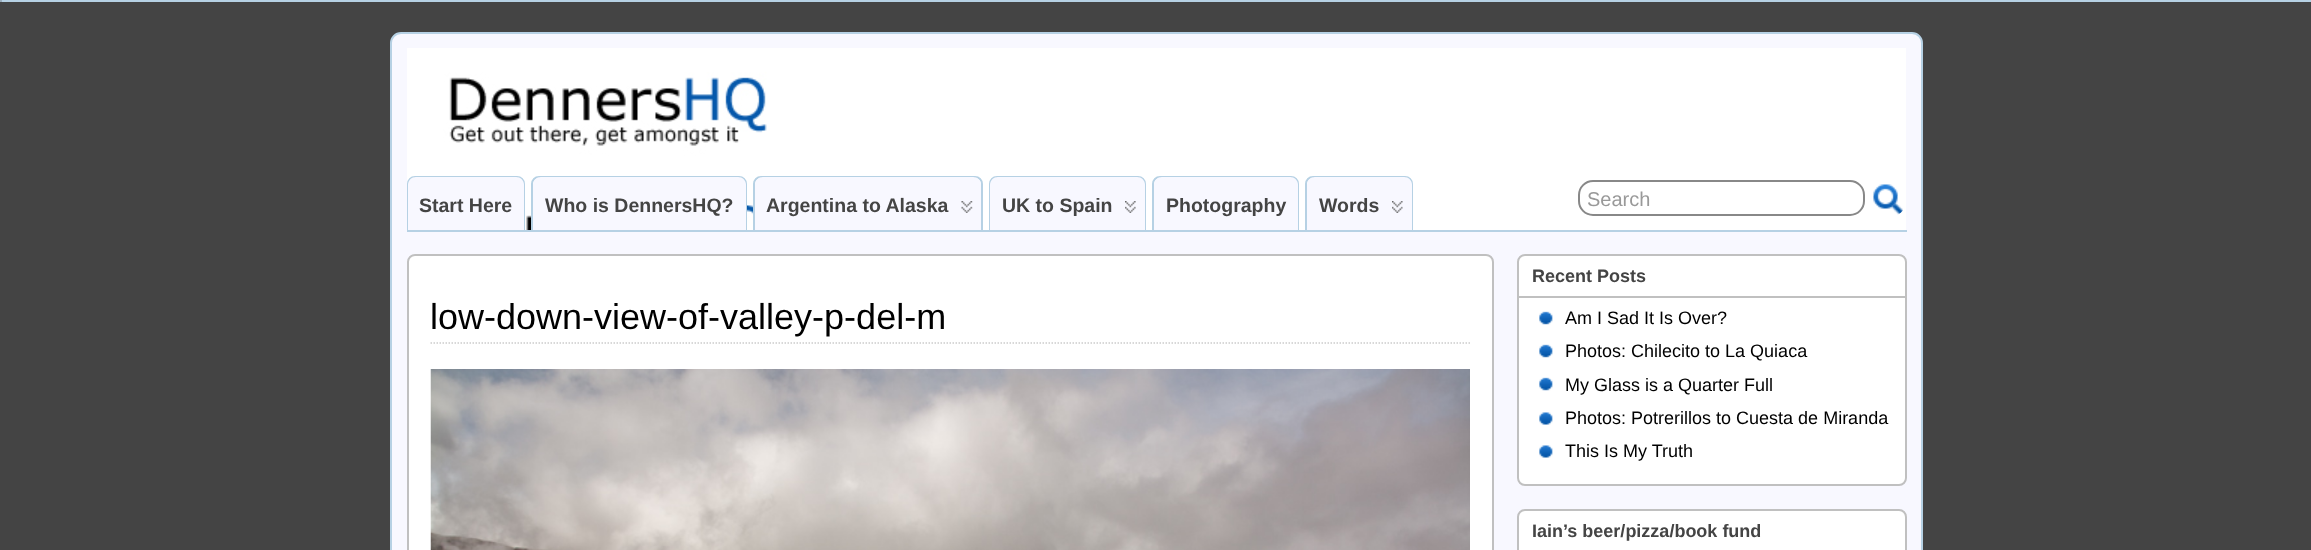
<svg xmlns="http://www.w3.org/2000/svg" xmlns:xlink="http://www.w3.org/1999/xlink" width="2311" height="550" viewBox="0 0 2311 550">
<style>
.cls-1{font:bold 19.5px Liberation Sans;fill:#444444}
.cls-2{font:20px Liberation Sans;fill:#999999}
.cls-3{font:36px Liberation Sans;fill:#000000}
.cls-4{font:bold 18px Liberation Sans;fill:#444444}
.cls-5{font:18px Liberation Sans;fill:#000000}
</style>
<rect width="100%" height="100%" fill="#444444"/>
<rect fill="#b6d1e4" x="2" y="0" width="2309" height="2"/>
<circle fill="#b6d1e4" cx="1" cy="1" r="1"/>
<rect fill="#f8f8ff" stroke="#b6d1e4" stroke-width="2" x="391" y="33" width="1531" height="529" rx="10"/>
<image xlink:href="image0.png" x="407" y="48" width="1499" height="182"/>
<rect fill="#b6d1e4" x="407" y="230" width="1500" height="2"/>
<path fill="none" stroke="#b6d1e4" stroke-width="2" d="M415 177H517C521 177 524 180 524 184V230H408V184C408 180 411 177 415 177Z"/>
<path fill="#f8f8ff" d="M416 177H516C520.5 177 524 180.5 524 185V230H408V185C408 180.5 411.5 177 416 177Z"/>
<path fill="none" stroke="#b6d1e4" stroke-width="2" d="M539 177H739C743 177 746 180 746 184V230H532V184C532 180 535 177 539 177Z"/>
<path fill="#f8f8ff" d="M541 177H738C742.5 177 746 180.5 746 185V230H533V185C533 180.5 536.5 177 541 177Z"/>
<path fill="none" stroke="#b6d1e4" stroke-width="2" d="M761 177H975C979 177 982 180 982 184V230H754V184C754 180 757 177 761 177Z"/>
<path fill="#f8f8ff" d="M763 177H973C977.5 177 981 180.5 981 185V230H755V185C755 180.5 758.5 177 763 177Z"/>
<image xlink:href="image1.png" x="961" y="201" width="12" height="12"/>
<path fill="none" stroke="#b6d1e4" stroke-width="2" d="M997 177H1138C1142 177 1145 180 1145 184V230H990V184C990 180 993 177 997 177Z"/>
<path fill="#f8f8ff" d="M998 177H1137C1141.5 177 1145 180.5 1145 185V230H990V185C990 180.5 993.5 177 998 177Z"/>
<image xlink:href="image2.png" x="1125" y="201" width="11" height="12"/>
<path fill="none" stroke="#b6d1e4" stroke-width="2" d="M1160 177H1291C1295 177 1298 180 1298 184V230H1153V184C1153 180 1156 177 1160 177Z"/>
<path fill="#f8f8ff" d="M1162 177H1290C1294.5 177 1298 180.5 1298 185V230H1154V185C1154 180.5 1157.5 177 1162 177Z"/>
<path fill="none" stroke="#b6d1e4" stroke-width="2" d="M1313 177H1405C1409 177 1412 180 1412 184V230H1306V184C1306 180 1309 177 1313 177Z"/>
<path fill="#f8f8ff" d="M1315 177H1404C1408.5 177 1412 180.5 1412 185V230H1307V185C1307 180.5 1310.5 177 1315 177Z"/>
<image xlink:href="image3.png" x="1392" y="201" width="11" height="12"/>
<rect fill="none" stroke="#888888" stroke-width="2" x="1579" y="181" width="285" height="34" rx="14"/>
<image xlink:href="image4.png" x="1873" y="184" width="30" height="31"/>
<rect fill="#ffffff" stroke="#c0c0c0" stroke-width="2" x="408" y="255" width="1085" height="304" rx="7"/>
<path fill="none" stroke="#cccccc" stroke-width="1.5" stroke-dasharray="1.5 1.5" d="M430.5 343H1470"/>
<image xlink:href="image5.png" x="430" y="369" width="1040" height="181"/>
<rect fill="#ffffff" stroke="#c0c0c0" stroke-width="2" x="1518" y="255" width="388" height="230" rx="7"/>
<rect fill="#c0c0c0" x="1518" y="296" width="387" height="2"/>
<image xlink:href="image6.png" x="1539" y="311" width="14" height="14"/>
<image xlink:href="image6.png" x="1539" y="344" width="14" height="14"/>
<image xlink:href="image6.png" x="1539" y="377" width="14" height="14"/>
<image xlink:href="image7.png" x="1539" y="412" width="14" height="13"/>
<image xlink:href="image7.png" x="1539" y="445" width="14" height="13"/>
<rect fill="#ffffff" stroke="#c0c0c0" stroke-width="2" x="1518" y="510" width="388" height="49" rx="7"/>
<text class="cls-1" x="419" y="212">Start Here</text>
<text class="cls-1" x="545" y="212">Who is DennersHQ?</text>
<text class="cls-1" x="766" y="212">Argentina to Alaska</text>
<text class="cls-1" x="1002" y="212">UK to Spain</text>
<text class="cls-1" x="1166" y="212">Photography</text>
<text class="cls-1" x="1319" y="212">Words</text>
<text class="cls-2" x="1587" y="206">Search</text>
<text class="cls-3" x="430" y="329">low-down-view-of-valley-p-del-m</text>
<text class="cls-4" x="1532" y="282">Recent Posts</text>
<text class="cls-5"><tspan x="1565" y="324">Am I Sad It Is Over?</tspan><tspan x="1565" y="357">Photos: Chilecito to La Quiaca</tspan><tspan x="1565" y="391">My Glass is a Quarter Full</tspan><tspan x="1565" y="424">Photos: Potrerillos to Cuesta de Miranda</tspan><tspan x="1565" y="457">This Is My Truth</tspan></text>
<text class="cls-4" x="1532" y="537">Iain’s beer/pizza/book fund</text>
</svg>
